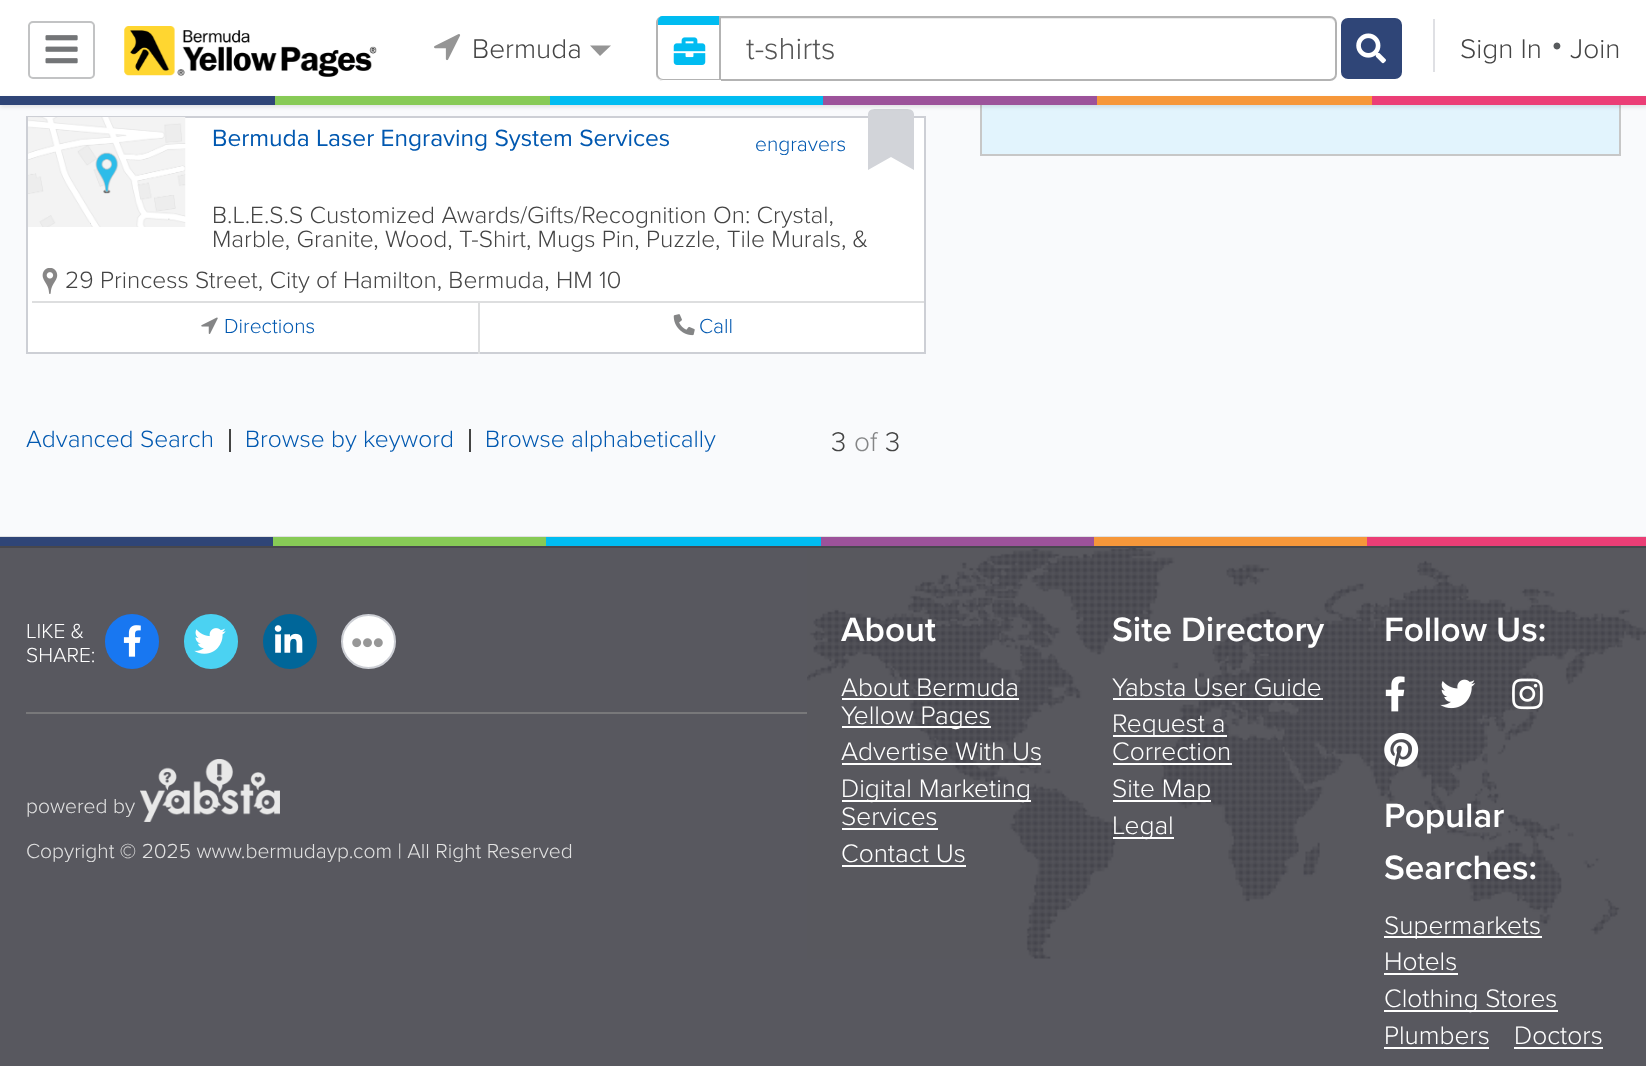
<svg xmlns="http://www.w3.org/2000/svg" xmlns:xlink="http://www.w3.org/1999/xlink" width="1646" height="1066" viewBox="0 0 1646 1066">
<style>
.cls-1{font:300 28px Proxima Nova;fill:#444444}
.cls-2{font:300 31.5px Proxima Nova;fill:#555555}
.cls-3{font:300 33px Proxima Nova;fill:#585b5d}
.cls-4{font:24.5px Proxima Nova;fill:#0158b0}
.cls-5{font:300 21px Proxima Nova;fill:#0158b0}
.cls-6{font:300 24.5px Proxima Nova;fill:#444444}
.cls-7{font:300 24.5px Proxima Nova;fill:#0158b0}
.cls-8{font:300 28px Proxima Nova;fill:#848586}
.cls-9{font:300 21px Proxima Nova;fill:#ffffff}
.cls-10{font:300 21px Proxima Nova;fill:#e2e2e2}
.cls-11{font:600 35px Proxima Nova;fill:#ffffff}
.cls-12{font:300 26.25px Proxima Nova;fill:#ffffff}
</style>
<rect width="100%" height="100%" fill="#f9fafc"/>
<rect fill="none" stroke="#c7c7c7" stroke-width="2" x="981" y="-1" width="639" height="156"/>
<rect fill="#ffffff" x="0" y="0" width="1646" height="96"/>
<rect fill="none" stroke="#c2c3c4" stroke-width="2" x="29" y="22" width="65" height="56" rx="4"/>
<image xlink:href="image0.png" x="45" y="35" width="33" height="29"/>
<image xlink:href="image1.png" x="124" y="26" width="253" height="51"/>
<image xlink:href="image2.png" x="434" y="34" width="27" height="27"/>
<path fill="#959595" d="M590 45.5H611L600 56Z"/>
<path fill="#ececec" d="M663 19H1330C1333 19 1335 22 1335 24V23C1335 20 1333 18 1330 18H663C660 18 658 20 658 23V24C658 22 660 19 663 19Z"/>
<rect fill="none" stroke="#b3b3b3" stroke-width="2" x="657" y="17" width="679" height="63" rx="6"/>
<path fill="#ffffff" d="M663 16H721V81H663C659 81 656 78 656 74V23C656 19 659 16 663 16Z"/>
<path fill="#b3b3b3" fill-rule="evenodd" d="M663 16H721V80H663C659 80 656 77 656 74V23C656 19 659 16 663 16ZM663 16H719V79H663C660 79 658 76 658 74V23C658 19 660 16 663 16Z"/>
<path fill="#00bcf1" d="M663 16H719V25H658V21C658 18 660 16 663 16Z"/>
<image xlink:href="image3.png" x="673" y="37" width="33" height="28"/>
<rect fill="#2f4577" stroke="#2f4577" stroke-width="2" x="1342" y="19" width="59" height="59" rx="6"/>
<image xlink:href="image4.png" x="1356" y="33" width="30" height="31"/>
<rect fill="#dfe0e4" x="1433" y="19" width="2" height="53"/>
<rect fill="#e2f4fd" x="982" y="105" width="637" height="49"/>
<rect fill="#ffffff" stroke="#cdcfd5" stroke-width="2" x="27" y="117" width="898" height="236"/>
<path fill="#d2d4d9" d="M868 170V114C869 108 875 109 879 109H902C907 109 913 108 914 114V170L891 157Z"/>
<rect fill="#000000" fill-opacity="0.1" filter="blur(2px)" x="0" y="98" width="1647" height="9"/>
<rect fill="#eb3e76" x="1372" y="96" width="274" height="9"/>
<rect fill="#2f4577" x="0" y="96" width="275" height="9"/>
<rect fill="#87ca56" x="275" y="96" width="275" height="9"/>
<rect fill="#00bcf1" x="550" y="96" width="273" height="9"/>
<rect fill="#9c529a" x="823" y="96" width="274" height="9"/>
<rect fill="#f6973a" x="1097" y="96" width="275" height="9"/>
<image xlink:href="image5.png" x="28" y="117" width="158" height="110"/>
<image xlink:href="image6.png" x="42" y="268" width="16" height="26"/>
<rect fill="#dddedf" x="32" y="301" width="892" height="2"/>
<image xlink:href="image7.png" x="201" y="317" width="17" height="17"/>
<rect fill="#dddedf" x="478" y="303" width="2" height="51"/>
<image xlink:href="image8.png" x="673" y="314" width="22" height="22"/>
<rect fill="#444444" x="229" y="429" width="2" height="23"/>
<rect fill="#444444" x="469" y="429" width="2" height="23"/>
<path fill="#e0e1e3" d="M0 536V537H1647V544V536Z"/>
<rect fill="#eb3e76" x="1367" y="537" width="279" height="9"/>
<rect fill="#2f4577" x="0" y="537" width="273" height="9"/>
<rect fill="#87ca56" x="273" y="537" width="273" height="9"/>
<rect fill="#00bcf1" x="546" y="537" width="275" height="9"/>
<rect fill="#9c529a" x="821" y="537" width="273" height="9"/>
<rect fill="#f6973a" x="1094" y="537" width="273" height="9"/>
<rect fill="#58585f" x="0" y="548" width="1646" height="518"/>
<image xlink:href="image9.png" x="807" y="548" width="839" height="411"/>
<rect fill="#47474d" x="0" y="546" width="1646" height="2"/>
<rect fill="#78787a" x="26" y="712" width="781" height="2"/>
<rect fill="#1877f1" x="105" y="614" width="54" height="55" rx="27"/>
<image xlink:href="image10.png" x="123" y="625" width="18" height="32"/>
<rect fill="#4bd2f2" x="184" y="614" width="54" height="55" rx="27"/>
<image xlink:href="image11.png" x="194" y="628" width="32" height="26"/>
<rect fill="#006699" x="263" y="614" width="54" height="55" rx="27"/>
<image xlink:href="image12.png" x="274" y="625" width="29" height="28"/>
<circle fill="#ffffff" stroke="#cdcfd5" stroke-width="2" cx="368.5" cy="641.5" r="26.5"/>
<image xlink:href="image13.png" x="352" y="638" width="31" height="10"/>
<image xlink:href="image14.png" x="140" y="759" width="140" height="63"/>
<rect fill="#ffffff" x="842" y="698" width="177" height="2"/>
<rect fill="#ffffff" x="842" y="726" width="149" height="2"/>
<rect fill="#ffffff" x="842" y="763" width="199" height="2"/>
<rect fill="#ffffff" x="842" y="800" width="189" height="2"/>
<rect fill="#ffffff" x="842" y="828" width="96" height="2"/>
<rect fill="#ffffff" x="842" y="865" width="124" height="2"/>
<rect fill="#ffffff" x="1113" y="698" width="210" height="2"/>
<rect fill="#ffffff" x="1113" y="735" width="114" height="2"/>
<rect fill="#ffffff" x="1113" y="763" width="119" height="2"/>
<rect fill="#ffffff" x="1113" y="800" width="98" height="2"/>
<rect fill="#ffffff" x="1113" y="837" width="61" height="2"/>
<image xlink:href="image15.png" x="1385" y="676" width="20" height="36"/>
<image xlink:href="image16.png" x="1440" y="679" width="36" height="30"/>
<image xlink:href="image17.png" x="1512" y="678" width="31" height="32"/>
<image xlink:href="image18.png" x="1384" y="732" width="35" height="35"/>
<rect fill="#ffffff" x="1384" y="936" width="158" height="2"/>
<rect fill="#ffffff" x="1384" y="973" width="74" height="2"/>
<rect fill="#ffffff" x="1384" y="1010" width="174" height="2"/>
<rect fill="#ffffff" x="1384" y="1047" width="105" height="2"/>
<rect fill="#ffffff" x="1514" y="1047" width="89" height="2"/>
<text class="cls-1" x="472" y="58">Bermuda</text>
<text class="cls-2" x="746" y="59">t-shirts</text>
<text class="cls-1" x="1460" y="58">Sign In</text>
<text class="cls-3" x="1551" y="54">•</text>
<text class="cls-1" x="1570" y="58">Join</text>
<text class="cls-4" x="212" y="146">Bermuda Laser Engraving System Services</text>
<text class="cls-5" x="755" y="151">engravers</text>
<text class="cls-6"><tspan x="212" y="223">B.L.E.S.S Customized Awards/Gifts/Recognition On: Crystal,</tspan><tspan x="212" y="247">Marble, Granite, Wood, T-Shirt, Mugs Pin, Puzzle, Tile Murals, &amp;</tspan></text>
<text class="cls-6" x="65" y="288">29 Princess Street, City of Hamilton, Bermuda, HM 10</text>
<text class="cls-5" x="224" y="333">Directions</text>
<text class="cls-5" x="699" y="333">Call</text>
<text class="cls-7" x="26" y="447">Advanced Search</text>
<text class="cls-7" x="245" y="447">Browse by keyword</text>
<text class="cls-7" x="485" y="447">Browse alphabetically</text>
<text class="cls-1" x="831" y="451">3</text>
<text class="cls-8" x="854" y="451">of</text>
<text class="cls-1" x="885" y="451">3</text>
<text class="cls-9"><tspan x="26" y="638">LIKE &amp;</tspan><tspan x="26" y="662">SHARE:</tspan></text>
<text class="cls-10" x="26" y="813">powered by</text>
<text class="cls-10" x="26" y="858">Copyright © 2025 www.bermudayp.com | All Right Reserved</text>
<text class="cls-11" x="841" y="641">About</text>
<text class="cls-12"><tspan x="841" y="696">About Bermuda</tspan><tspan x="841" y="724">Yellow Pages</tspan><tspan x="841" y="760">Advertise With Us</tspan><tspan x="841" y="797">Digital Marketing</tspan><tspan x="841" y="825">Services</tspan><tspan x="841" y="862">Contact Us</tspan></text>
<text class="cls-11" x="1112" y="641">Site Directory</text>
<text class="cls-12"><tspan x="1112" y="696">Yabsta User Guide</tspan><tspan x="1112" y="732">Request a</tspan><tspan x="1112" y="760">Correction</tspan><tspan x="1112" y="797">Site Map</tspan><tspan x="1112" y="834">Legal</tspan></text>
<text class="cls-11" x="1384" y="641">Follow Us:</text>
<text class="cls-11"><tspan x="1384" y="827">Popular</tspan><tspan x="1384" y="879">Searches:</tspan></text>
<text class="cls-12"><tspan x="1384" y="934">Supermarkets</tspan><tspan x="1384" y="970">Hotels</tspan><tspan x="1384" y="1007">Clothing Stores</tspan><tspan x="1384" y="1044">Plumbers</tspan></text>
<text class="cls-12" x="1514" y="1044">Doctors</text>
</svg>
